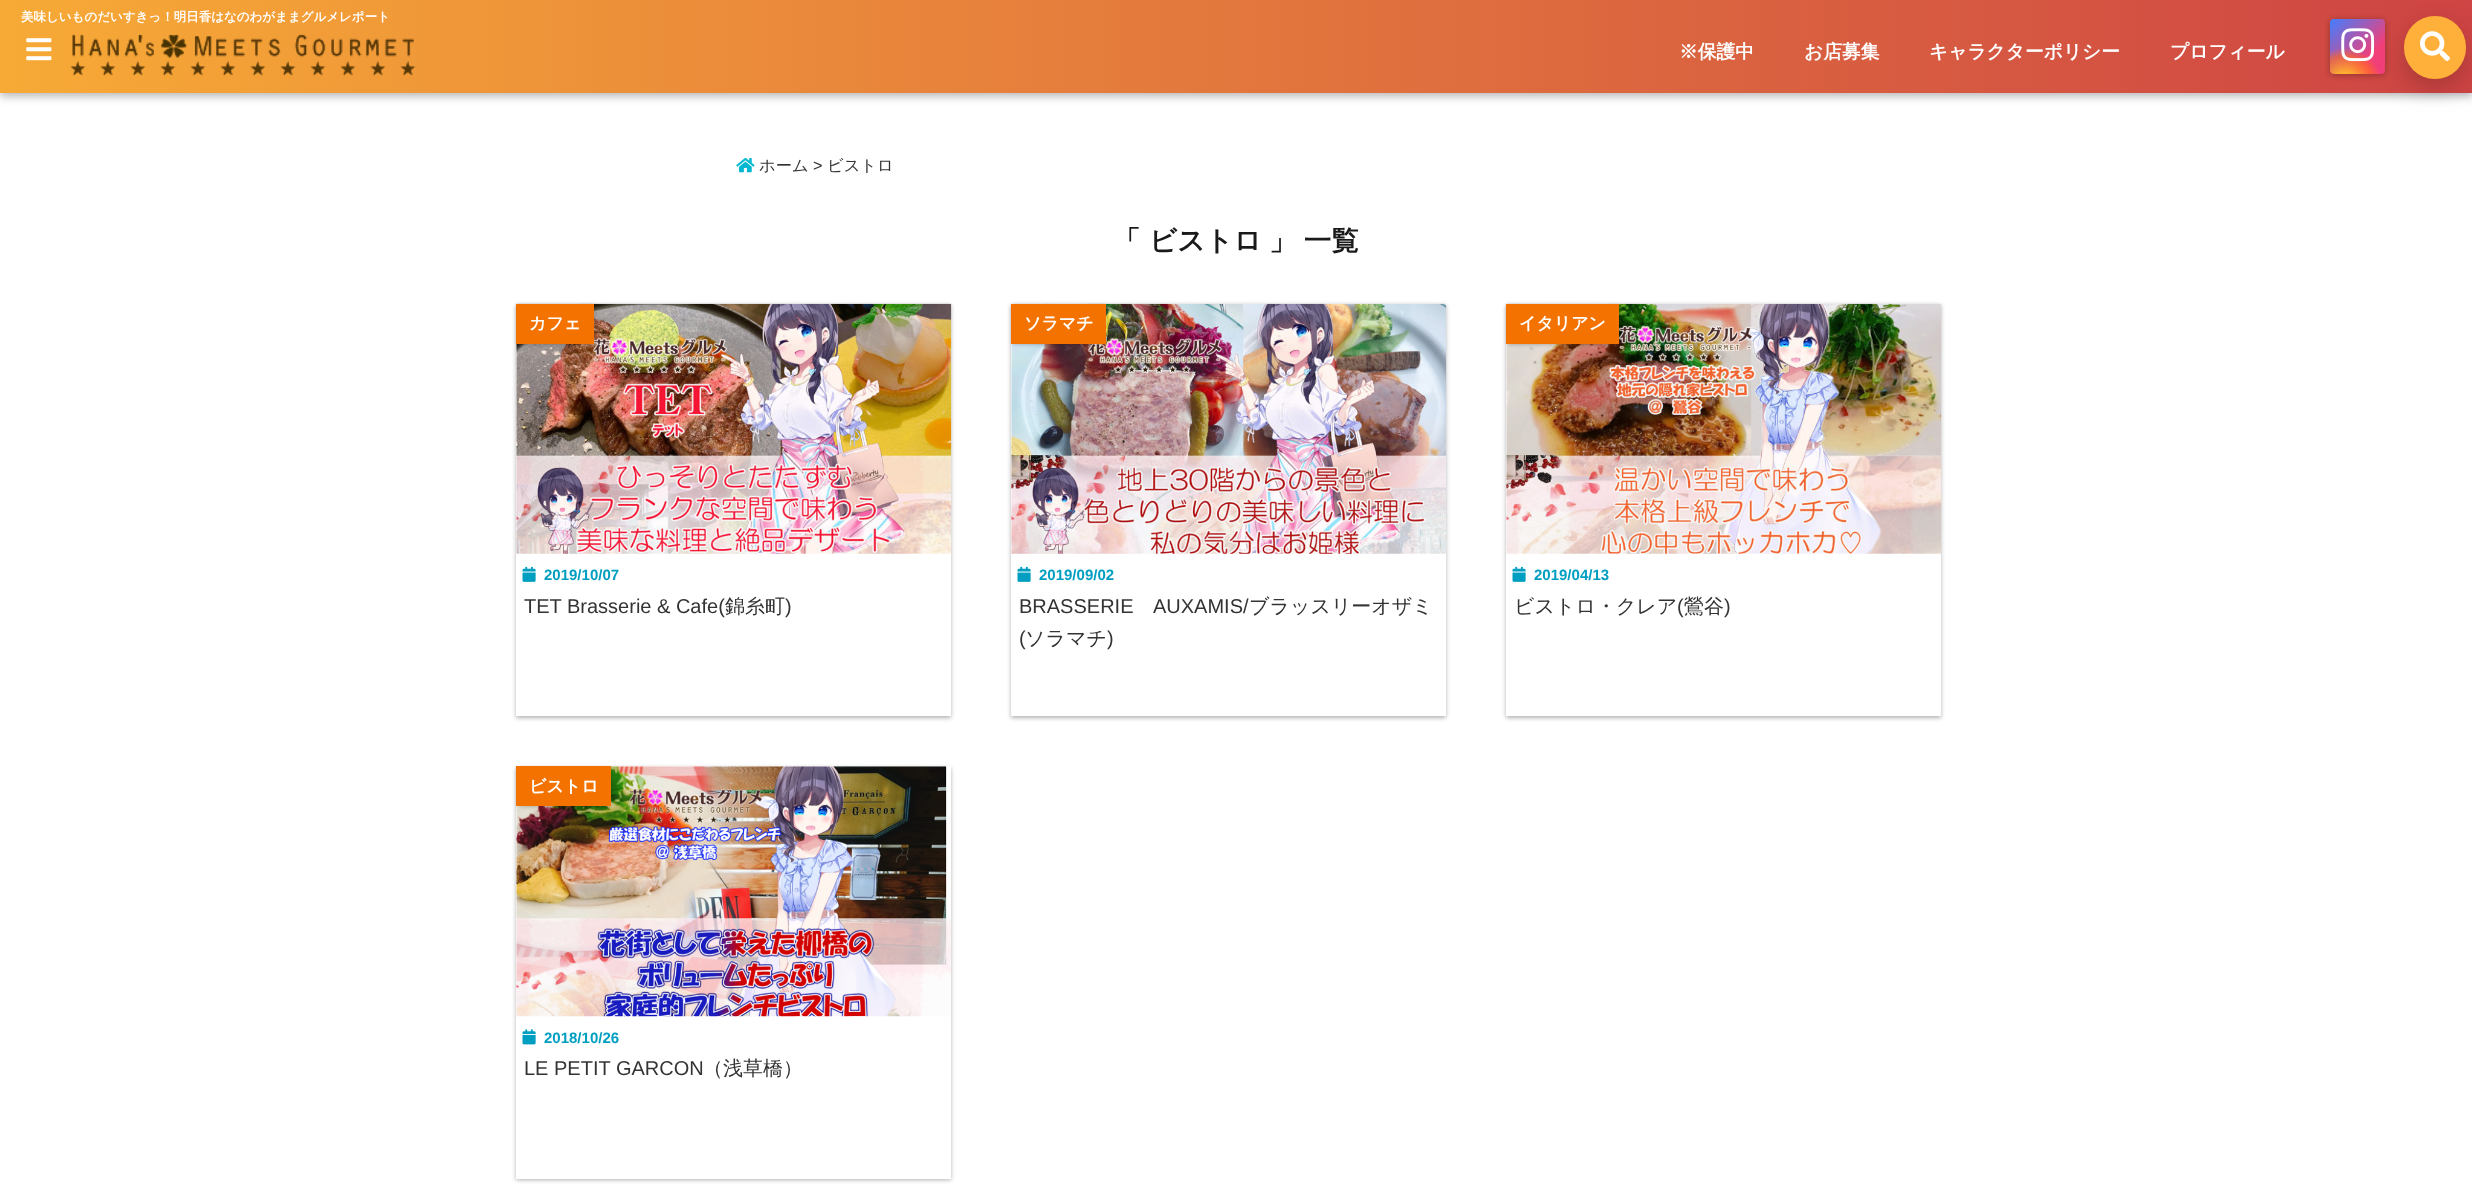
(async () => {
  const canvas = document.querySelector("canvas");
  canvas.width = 2472;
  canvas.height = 1193;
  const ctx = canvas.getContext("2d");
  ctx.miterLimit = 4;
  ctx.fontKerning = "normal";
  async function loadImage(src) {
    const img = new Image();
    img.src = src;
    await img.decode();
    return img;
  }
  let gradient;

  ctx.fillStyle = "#ffffff";
  ctx.fillRect(0, 0, 2472, 1193);
  ctx.fillStyle = "rgba(0, 0, 0, 0.3)";
  ctx.filter = "blur(5px)";
  ctx.beginPath();
  ctx.rect(0, 4, 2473, 92);
  ctx.fill();
  ctx.filter = "none";
  gradient = ctx.createLinearGradient(0, 46, 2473, 46);
  gradient.addColorStop(0, "#f7aa36");
  gradient.addColorStop(1, "#ce4444");
  ctx.fillStyle = gradient;
  ctx.fillRect(0, 0, 2472, 93);
  ctx.drawImage(await loadImage("img/1.png"), 26, 38, 26, 23);
  ctx.drawImage(await loadImage("img/2.png"), 70, 34, 346, 42);
  ctx.fillStyle = "rgba(0, 0, 0, 0.3)";
  ctx.filter = "blur(3px)";
  ctx.beginPath();
  ctx.roundRect(2330, 20, 55, 55, 4);
  ctx.fill();
  ctx.filter = "none";
  gradient = ctx.createLinearGradient(2330, 19, 2385, 74);
  gradient.addColorStop(0, "#427eff");
  gradient.addColorStop(0.7, "#f13f79");
  ctx.fillStyle = gradient;
  ctx.beginPath();
  ctx.roundRect(2330, 19, 55, 55, 4);
  ctx.fill();
  ctx.save();
  ctx.beginPath();
  ctx.roundRect(2330, 19, 55, 55, 4);
  ctx.clip();
  gradient = ctx.createRadialGradient(2345, 85, 0, 2345, 85, 53);
  gradient.addColorStop(0.1, "#ffdb2c");
  gradient.addColorStop(0.55, "rgba(255, 105, 34, 0.65)");
  gradient.addColorStop(0.7, "rgba(255, 105, 34, 0)");
  ctx.fillStyle = gradient;
  ctx.beginPath();
  ctx.roundRect(2330, 48, 53, 26, [0, 0, 0, 4]);
  ctx.fill();
  ctx.restore();
  ctx.drawImage(await loadImage("img/3.png"), 2341, 28, 34, 34);
  ctx.fillStyle = "rgba(0, 0, 0, 0.3)";
  ctx.filter = "blur(15.5px)";
  ctx.beginPath();
  ctx.roundRect(2410, 33, 50, 50, 25);
  ctx.fill();
  ctx.filter = "none";
  ctx.fillStyle = "#ffb03a";
  ctx.beginPath();
  ctx.roundRect(2404, 16, 62, 63, 31);
  ctx.fill();
  ctx.drawImage(await loadImage("img/4.png"), 2420, 31, 30, 30);
  ctx.drawImage(await loadImage("img/5.png"), 736, 158, 19, 15);
  ctx.fillStyle = "rgba(0, 0, 0, 0.3)";
  ctx.filter = "blur(2px)";
  ctx.beginPath();
  ctx.rect(516, 305, 435, 413);
  ctx.fill();
  ctx.filter = "none";
  ctx.fillStyle = "#ffffff";
  ctx.fillRect(516, 344, 435, 372);
  ctx.drawImage(await loadImage("img/6.png"), 516, 303, 436, 251);
  ctx.fillStyle = "rgba(0, 0, 0, 0.3)";
  ctx.filter = "blur(2px)";
  ctx.beginPath();
  ctx.rect(518, 306, 75, 38);
  ctx.fill();
  ctx.filter = "none";
  ctx.fillStyle = "#f47200";
  ctx.fillRect(516, 304, 78, 40);
  ctx.drawImage(await loadImage("img/7.png"), 522, 566, 14, 16);
  ctx.fillStyle = "rgba(0, 0, 0, 0.3)";
  ctx.filter = "blur(2px)";
  ctx.beginPath();
  ctx.rect(1011, 305, 435, 413);
  ctx.fill();
  ctx.filter = "none";
  ctx.fillStyle = "#ffffff";
  ctx.fillRect(1011, 344, 435, 372);
  ctx.drawImage(await loadImage("img/8.png"), 1011, 303, 436, 251);
  ctx.fillStyle = "rgba(0, 0, 0, 0.3)";
  ctx.filter = "blur(2px)";
  ctx.beginPath();
  ctx.rect(1013, 306, 92, 38);
  ctx.fill();
  ctx.filter = "none";
  ctx.fillStyle = "#f47200";
  ctx.fillRect(1011, 304, 95, 40);
  ctx.drawImage(await loadImage("img/7.png"), 1017, 566, 14, 16);
  ctx.fillStyle = "rgba(0, 0, 0, 0.3)";
  ctx.filter = "blur(2px)";
  ctx.beginPath();
  ctx.rect(1506, 305, 435, 413);
  ctx.fill();
  ctx.filter = "none";
  ctx.fillStyle = "#ffffff";
  ctx.fillRect(1506, 344, 435, 372);
  ctx.drawImage(await loadImage("img/9.png"), 1506, 303, 436, 251);
  ctx.fillStyle = "rgba(0, 0, 0, 0.3)";
  ctx.filter = "blur(2px)";
  ctx.beginPath();
  ctx.rect(1508, 306, 110, 38);
  ctx.fill();
  ctx.filter = "none";
  ctx.fillStyle = "#f47200";
  ctx.fillRect(1506, 304, 113, 40);
  ctx.drawImage(await loadImage("img/7.png"), 1512, 566, 14, 16);
  ctx.fillStyle = "rgba(0, 0, 0, 0.3)";
  ctx.filter = "blur(2px)";
  ctx.beginPath();
  ctx.rect(516, 768, 435, 412);
  ctx.fill();
  ctx.filter = "none";
  ctx.fillStyle = "#ffffff";
  ctx.fillRect(516, 766, 435, 413);
  ctx.drawImage(await loadImage("img/10.png"), 516, 766, 435, 251);
  ctx.fillStyle = "rgba(0, 0, 0, 0.3)";
  ctx.filter = "blur(2px)";
  ctx.beginPath();
  ctx.rect(518, 769, 92, 37);
  ctx.fill();
  ctx.filter = "none";
  ctx.fillStyle = "#f47200";
  ctx.fillRect(516, 766, 95, 40);
  ctx.drawImage(await loadImage("img/11.png"), 522, 1029, 14, 16);
  ctx.font = "bold 12.5px WenQuanYi Zen Hei";
  ctx.fillStyle = "#ffffff";
  ctx.fillText("美味しいものだいすきっ！明日香はなのわがままグルメレポート", 21, 21);
  ctx.font = "bold 18.75px WenQuanYi Zen Hei";
  for (const [text, x, y] of [
    ["※保護中", 1679, 58],
    ["お店募集", 1804, 58],
    ["キャラクターポリシー", 1929, 58],
    ["プロフィール", 2170, 58],
  ]) {
    ctx.fillText(text, x, y);
  }
  ctx.font = "500 16.25px WenQuanYi Zen Hei";
  ctx.fillStyle = "#333333";
  ctx.fillText("ホーム", 759, 171);
  ctx.font = "16.25px Liberation Sans";
  ctx.fillText(">", 813, 171);
  ctx.font = "500 16.25px WenQuanYi Zen Hei";
  ctx.fillText("ビストロ", 827, 171);
  ctx.font = "bold 27.5px WenQuanYi Zen Hei";
  ctx.fillStyle = "#1a1a1a";
  ctx.fillText("「", 1113, 250);
  ctx.fillText("ビストロ", 1149, 250);
  ctx.wordSpacing = "-1px";
  ctx.fillText("」 一覧", 1269, 250);
  ctx.wordSpacing = "0px";
  ctx.font = "bold 17px WenQuanYi Zen Hei";
  ctx.fillStyle = "#ffffff";
  ctx.fillText("カフェ", 529, 329);
  ctx.font = "bold 15px Liberation Sans";
  ctx.fillStyle = "#009fc1";
  ctx.fillText("2019/10/07", 544, 580);
  ctx.font = "20px Liberation Sans";
  ctx.fillStyle = "#333333";
  ctx.fillText("TET Brasserie & Cafe(", 524, 613);
  ctx.font = "500 20px WenQuanYi Zen Hei";
  ctx.fillText("錦糸町", 725, 613);
  ctx.font = "20px Liberation Sans";
  ctx.fillText(")", 785, 613);
  ctx.font = "bold 17px WenQuanYi Zen Hei";
  ctx.fillStyle = "#ffffff";
  ctx.fillText("ソラマチ", 1024, 329);
  ctx.font = "bold 15px Liberation Sans";
  ctx.fillStyle = "#009fc1";
  ctx.fillText("2019/09/02", 1039, 580);
  ctx.font = "20px Liberation Sans";
  ctx.fillStyle = "#333333";
  ctx.fillText("BRASSERIE", 1019, 613);
  ctx.fillText("AUXAMIS/", 1153, 613);
  ctx.font = "500 20px WenQuanYi Zen Hei";
  ctx.fillText("ブラッスリーオザミ", 1249, 613);
  ctx.font = "20px Liberation Sans";
  ctx.fillText("(", 1019, 645);
  ctx.font = "500 20px WenQuanYi Zen Hei";
  ctx.fillText("ソラマチ", 1025, 645);
  ctx.font = "20px Liberation Sans";
  ctx.fillText(")", 1107, 645);
  ctx.font = "bold 17px WenQuanYi Zen Hei";
  ctx.fillStyle = "#ffffff";
  ctx.fillText("イタリアン", 1519, 329);
  ctx.font = "bold 15px Liberation Sans";
  ctx.fillStyle = "#009fc1";
  ctx.fillText("2019/04/13", 1534, 580);
  ctx.font = "500 20px WenQuanYi Zen Hei";
  ctx.fillStyle = "#333333";
  ctx.fillText("ビストロ・クレア", 1514, 613);
  ctx.font = "20px Liberation Sans";
  ctx.fillText("(", 1677, 613);
  ctx.font = "500 20px WenQuanYi Zen Hei";
  ctx.fillText("鶯谷", 1684, 613);
  ctx.font = "20px Liberation Sans";
  ctx.fillText(")", 1724, 613);
  ctx.font = "bold 17px WenQuanYi Zen Hei";
  ctx.fillStyle = "#ffffff";
  ctx.fillText("ビストロ", 529, 792);
  ctx.font = "bold 15px Liberation Sans";
  ctx.fillStyle = "#009fc1";
  ctx.fillText("2018/10/26", 544, 1043);
  ctx.font = "20px Liberation Sans";
  ctx.fillStyle = "#333333";
  ctx.fillText("LE PETIT GARCON", 524, 1075);
  ctx.font = "500 20px WenQuanYi Zen Hei";
  ctx.fillText("（浅草橋）", 703, 1075);
})();
